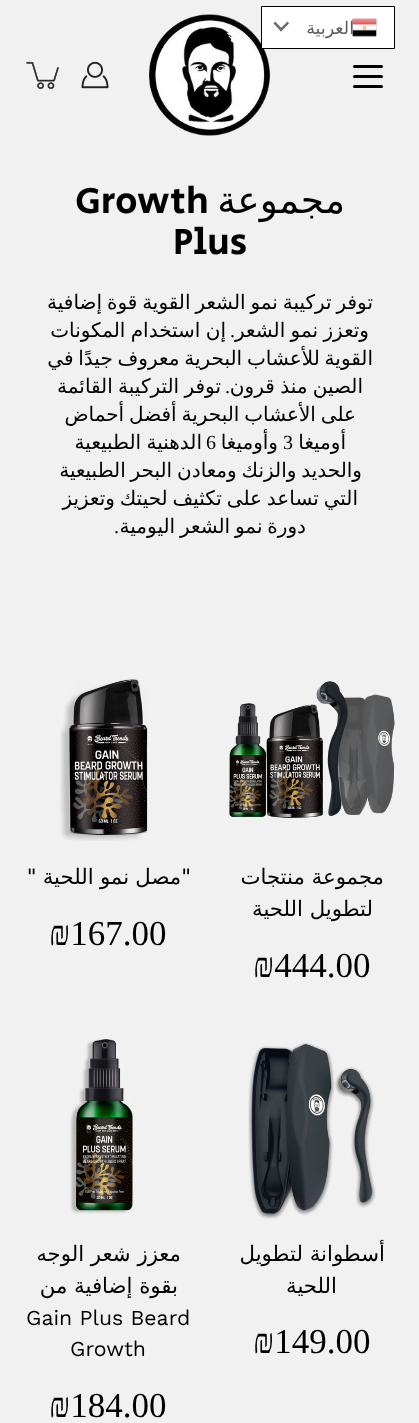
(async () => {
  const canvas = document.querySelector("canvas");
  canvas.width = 419;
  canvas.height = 1423;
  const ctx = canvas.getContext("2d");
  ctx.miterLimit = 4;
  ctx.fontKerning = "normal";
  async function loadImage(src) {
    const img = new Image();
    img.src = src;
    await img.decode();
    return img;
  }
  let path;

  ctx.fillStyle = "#f1f1f1";
  ctx.fillRect(0, 0, 419, 1423);
  ctx.drawImage(await loadImage("img/2.png"), 149, 14, 121, 122);
  ctx.fillStyle = "#ffffff";
  ctx.beginPath();
  ctx.rect(261.5, 6.5, 133, 42);
  ctx.fill();
  ctx.strokeStyle = "#000000";
  ctx.stroke();
  ctx.drawImage(await loadImage("img/1.png"), 352, 18, 25, 19);
  ctx.fillStyle = "#6c6c6c";
  path = new Path2D("M287.5 21.5L289 23.5L281 31.5L279.5 29.5Z");
  ctx.fill(path);
  path = new Path2D("M275 21.5L283 29.5L281 31.5L273.5 23.5Z");
  ctx.fill(path);
  ctx.fillStyle = "#000000";
  ctx.beginPath();
  ctx.roundRect(353, 75, 30, 3, 1.5);
  ctx.fill();
  ctx.beginPath();
  ctx.roundRect(353, 65, 30, 3, 1.5);
  ctx.fill();
  ctx.beginPath();
  ctx.roundRect(353, 85, 30, 3, 1.5);
  ctx.fill();
  ctx.drawImage(await loadImage("img/3.png"), 81, 61, 28, 28);
  ctx.drawImage(await loadImage("img/4.png"), 26, 61, 33, 28);
  ctx.drawImage(await loadImage("img/5.png"), 229, 681, 166, 137);
  ctx.drawImage(await loadImage("img/6.png"), 60, 679, 88, 162);
  ctx.drawImage(await loadImage("img/7.png"), 248, 1042, 128, 177);
  ctx.drawImage(await loadImage("img/8.png"), 70, 1038, 64, 176);
  ctx.letterSpacing = "1.75px";
  ctx.direction = "rtl";
  ctx.font = "17.5px DejaVu Sans";
  ctx.fillStyle = "#5c5c5c";
  ctx.fillText("العربية", 354, 34);
  ctx.letterSpacing = "0px";
  ctx.font = "37.5px DejaVu Sans";
  ctx.fillStyle = "#000000";
  ctx.fillText("مجموعة", 345, 213);
  ctx.direction = "ltr";
  ctx.font = "37.5px Secular One";
  ctx.fillText("Growth", 75, 213);
  ctx.fillText("Plus", 173, 254);
  ctx.wordSpacing = "-1.5px";
  ctx.direction = "rtl";
  ctx.font = "20px DejaVu Sans";
  ctx.fillText("توفر تركيبة نمو الشعر القوية قوة إضافية", 373, 309);
  ctx.wordSpacing = "-1px";
  ctx.fillText("وتعزز نمو الشعر", 369, 337);
  ctx.wordSpacing = "0px";
  ctx.font = "20px Liberation Serif";
  ctx.fillText(".", 235, 337);
  ctx.wordSpacing = "-1px";
  ctx.font = "20px DejaVu Sans";
  ctx.fillText("إن استخدام المكونات", 226, 337);
  ctx.wordSpacing = "-1.5px";
  ctx.fillText("القوية للأعشاب البحرية معروف جيدًا في", 373, 365);
  ctx.wordSpacing = "-1px";
  ctx.fillText("الصين منذ قرون", 363, 393);
  ctx.wordSpacing = "0px";
  ctx.font = "20px Liberation Serif";
  ctx.fillText(".", 230, 393);
  ctx.wordSpacing = "-1px";
  ctx.font = "20px DejaVu Sans";
  ctx.fillText("توفر التركيبة القائمة", 221, 393);
  ctx.wordSpacing = "-1.5px";
  ctx.fillText("على الأعشاب البحرية أفضل أحماض", 356, 421);
  ctx.wordSpacing = "0px";
  ctx.fillText("أوميغا", 346, 449);
  ctx.direction = "ltr";
  ctx.font = "20px Liberation Serif";
  ctx.fillText("3", 283, 449);
  ctx.direction = "rtl";
  ctx.font = "20px DejaVu Sans";
  ctx.fillText("وأوميغا", 278, 449);
  ctx.direction = "ltr";
  ctx.font = "20px Liberation Serif";
  ctx.fillText("6", 206, 449);
  ctx.wordSpacing = "-1px";
  ctx.direction = "rtl";
  ctx.font = "20px DejaVu Sans";
  ctx.fillText("الدهنية الطبيعية", 202, 449);
  ctx.wordSpacing = "-1.5px";
  for (const [text, x, y] of [
    ["والحديد والزنك ومعادن البحر الطبيعية", 362, 477],
    ["التي تساعد على تكثيف لحيتك وتعزيز", 358, 505],
    ["دورة نمو الشعر اليومية", 306, 533],
  ]) {
    ctx.fillText(text, x, y);
  }
  ctx.wordSpacing = "0px";
  ctx.font = "20px Liberation Serif";
  ctx.fillText(".", 119, 533);
  ctx.font = "21.25px DejaVu Sans";
  ctx.fillText("مجموعة منتجات", 384, 884);
  ctx.fillText("لتطويل اللحية", 373, 916);
  ctx.direction = "ltr";
  ctx.font = "35px Liberation Serif";
  ctx.fillText("₪444.00", 253, 977);
  ctx.wordSpacing = "-0.5px";
  ctx.direction = "rtl";
  ctx.font = "21.25px DejaVu Sans";
  ctx.fillText("\"مصل نمو اللحية \"", 191, 884);
  ctx.wordSpacing = "0px";
  ctx.direction = "ltr";
  ctx.font = "35px Liberation Serif";
  ctx.fillText("₪167.00", 49, 945);
  ctx.direction = "rtl";
  ctx.font = "21.25px DejaVu Sans";
  ctx.fillText("أسطوانة لتطويل", 385, 1261);
  ctx.fillText("اللحية", 337, 1293);
  ctx.direction = "ltr";
  ctx.font = "35px Liberation Serif";
  ctx.fillText("₪149.00", 253, 1353);
  ctx.direction = "rtl";
  ctx.font = "21.25px DejaVu Sans";
  ctx.fillText("معزز شعر الوجه", 181, 1261);
  ctx.fillText("بقوة إضافية من", 178, 1293);
  ctx.direction = "ltr";
  ctx.font = "21.25px Work Sans";
  ctx.fillText("Gain Plus Beard", 26, 1325);
  ctx.fillText("Growth", 70, 1356);
  ctx.font = "35px Liberation Serif";
  ctx.fillText("₪184.00", 49, 1417);
})();
